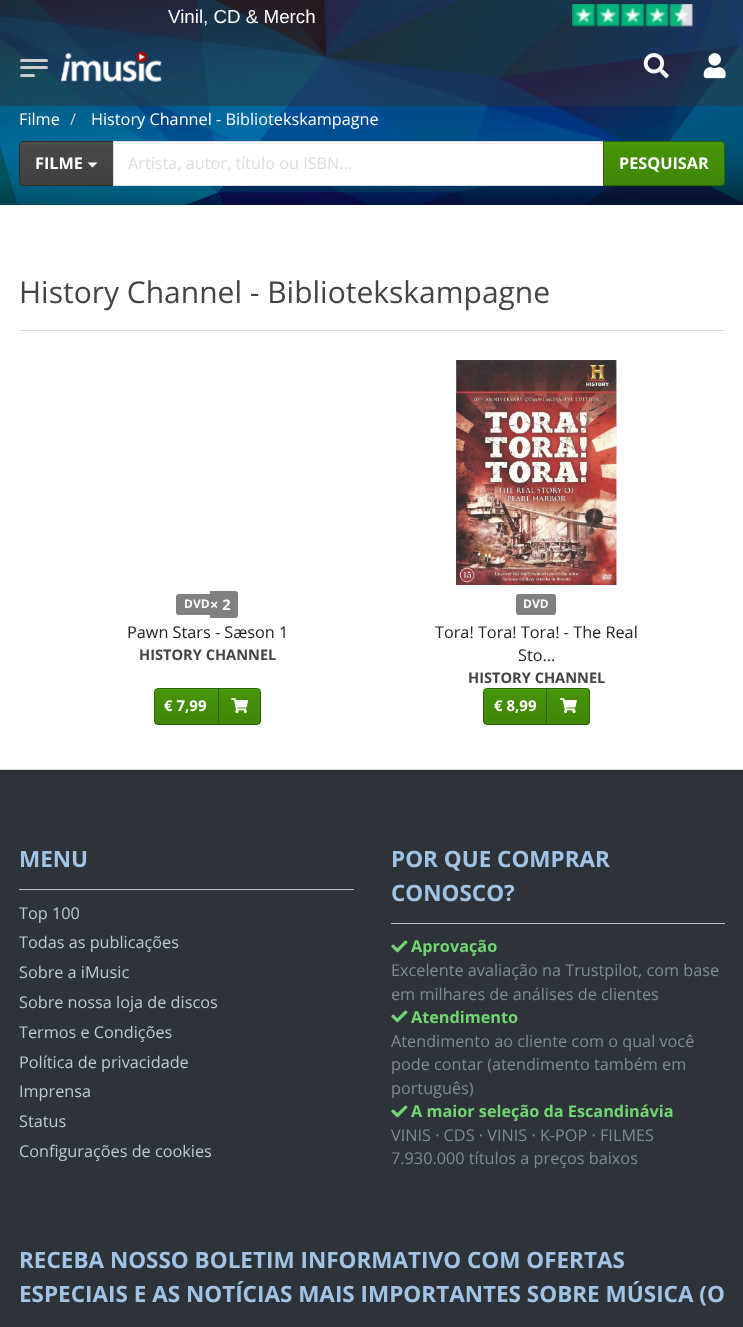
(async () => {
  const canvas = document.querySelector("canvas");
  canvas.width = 743;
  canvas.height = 1327;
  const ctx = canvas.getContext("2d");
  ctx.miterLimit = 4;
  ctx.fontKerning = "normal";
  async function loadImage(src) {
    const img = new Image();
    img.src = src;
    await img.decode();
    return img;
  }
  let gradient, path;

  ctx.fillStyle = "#ffffff";
  ctx.fillRect(0, 0, 743, 1327);
  ctx.drawImage(await loadImage("img/1.png"), 0, 0, 743, 205);
  ctx.fillStyle = "rgba(45, 51, 57, 0.5)";
  ctx.fillRect(0, 0, 743, 106);
  ctx.drawImage(await loadImage("img/2.png"), 572, 4, 121, 23);
  ctx.fillStyle = "#cccccc";
  ctx.beginPath();
  ctx.roundRect(20, 59, 28, 3, 1.5);
  ctx.fill();
  ctx.beginPath();
  ctx.roundRect(20, 66, 28, 3, 1.5);
  ctx.fill();
  ctx.beginPath();
  ctx.roundRect(20, 74, 15, 3, 1.5);
  ctx.fill();
  ctx.drawImage(await loadImage("img/3.png"), 61, 51, 101, 31);
  ctx.drawImage(await loadImage("img/4.png"), 643, 53, 26, 26);
  ctx.drawImage(await loadImage("img/5.png"), 703, 53, 23, 26);
  ctx.fillStyle = "#474949";
  ctx.beginPath();
  ctx.roundRect(19, 141, 95, 45, [5, 0, 0, 5]);
  ctx.fill();
  gradient = ctx.createLinearGradient(66, 143, 66, 185);
  gradient.addColorStop(0, "#4f5151");
  gradient.addColorStop(0.06, "#474949");
  gradient.addColorStop(1, "#3f4141");
  ctx.fillStyle = gradient;
  ctx.fillRect(20, 143, 93, 42);
  ctx.beginPath();
  ctx.roundRect(19.5, 141.5, 94, 44, [4.5, 0, 0, 4.5]);
  ctx.strokeStyle = "#2e2f2f";
  ctx.stroke();
  ctx.fillStyle = "#ffffff";
  path = new Path2D("M87.5 162.5H97.5L92.5 167.5Z");
  ctx.fill(path);
  ctx.fillRect(114, 142, 489, 43);
  ctx.fillStyle = "#ececec";
  ctx.fillRect(114, 143, 489, 1);
  ctx.strokeStyle = "#dddddd";
  ctx.strokeRect(113.5, 141.5, 490, 44);
  ctx.fillStyle = "#469408";
  ctx.beginPath();
  ctx.roundRect(603, 141, 122, 45, [0, 5, 5, 0]);
  ctx.fill();
  gradient = ctx.createLinearGradient(664, 143, 664, 185);
  gradient.addColorStop(0, "#4da309");
  gradient.addColorStop(0.06, "#469408");
  gradient.addColorStop(1, "#3f8507");
  ctx.fillStyle = gradient;
  ctx.fillRect(604, 143, 120, 42);
  ctx.beginPath();
  ctx.roundRect(603.5, 141.5, 121, 44, [0, 4.5, 4.5, 0]);
  ctx.strokeStyle = "#2f6405";
  ctx.stroke();
  ctx.fillStyle = "#dddddd";
  ctx.fillRect(19, 330, 706, 1);
  ctx.fillStyle = "#808080";
  ctx.beginPath();
  ctx.roundRect(176, 594, 34, 21, [3, 0, 0, 3]);
  ctx.fill();
  ctx.beginPath();
  ctx.roundRect(210, 591, 28, 27, [0, 3, 3, 0]);
  ctx.fill();
  gradient = ctx.createLinearGradient(186, 689, 186, 724);
  gradient.addColorStop(0, "#4da309");
  gradient.addColorStop(0.06, "#469408");
  gradient.addColorStop(1, "#3f8507");
  ctx.fillStyle = gradient;
  ctx.fillRect(155, 689, 63, 35);
  ctx.beginPath();
  ctx.roundRect(154.5, 688.5, 64, 36, [3.5, 0, 0, 3.5]);
  ctx.stroke();
  gradient = ctx.createLinearGradient(239, 689, 239, 724);
  gradient.addColorStop(0, "#4da309");
  gradient.addColorStop(0.06, "#469408");
  gradient.addColorStop(1, "#3f8507");
  ctx.fillStyle = gradient;
  ctx.fillRect(219, 689, 41, 35);
  ctx.beginPath();
  ctx.roundRect(218.5, 688.5, 42, 36, [0, 3.5, 3.5, 0]);
  ctx.stroke();
  ctx.drawImage(await loadImage("img/6.png"), 231, 698, 18, 16);
  ctx.drawImage(await loadImage("img/7.png"), 456, 360, 161, 225);
  ctx.drawImage(await loadImage("img/8.png"), 456, 360, 161, 225);
  ctx.fillStyle = "#808080";
  ctx.beginPath();
  ctx.roundRect(516, 594, 40, 21, 3);
  ctx.fill();
  gradient = ctx.createLinearGradient(515, 689, 515, 724);
  gradient.addColorStop(0, "#4da309");
  gradient.addColorStop(0.06, "#469408");
  gradient.addColorStop(1, "#3f8507");
  ctx.fillStyle = gradient;
  ctx.fillRect(484, 689, 62, 35);
  ctx.beginPath();
  ctx.roundRect(483.5, 688.5, 64, 36, [3.5, 0, 0, 3.5]);
  ctx.stroke();
  ctx.fillStyle = "#469408";
  ctx.beginPath();
  ctx.roundRect(546, 688, 44, 37, [0, 4, 4, 0]);
  ctx.fill();
  gradient = ctx.createLinearGradient(568, 689, 568, 724);
  gradient.addColorStop(0, "#4da309");
  gradient.addColorStop(0.06, "#469408");
  gradient.addColorStop(1, "#3f8507");
  ctx.fillStyle = gradient;
  ctx.fillRect(548, 689, 41, 35);
  ctx.beginPath();
  ctx.roundRect(546.5, 688.5, 43, 36, [0, 3.5, 3.5, 0]);
  ctx.stroke();
  ctx.drawImage(await loadImage("img/9.png"), 560, 698, 17, 16);
  for (const [x, y, w, h, color] of [
    [0, 770, 743, 557, "#2d3339"],
    [0, 769, 743, 1, "#dddddd"],
    [19, 889, 335, 1, "#bac1c8"],
    [391, 923, 334, 1, "#bac1c8"],
  ]) {
    ctx.fillStyle = color;
    ctx.fillRect(x, y, w, h);
  }
  ctx.drawImage(await loadImage("img/10.png"), 391, 940, 17, 13);
  ctx.drawImage(await loadImage("img/10.png"), 391, 1010, 17, 13);
  ctx.drawImage(await loadImage("img/10.png"), 391, 1105, 17, 13);
  ctx.font = "18.75px Liberation Sans";
  ctx.fillStyle = "#ffffff";
  ctx.fillText("Vinil, CD & Merch", 168, 23);
  ctx.font = "16.25px Open Sans";
  ctx.fillText("Filme", 19, 125);
  ctx.fillStyle = "#cccccc";
  ctx.fillText("/", 70, 125);
  ctx.fillStyle = "#ffffff";
  ctx.fillText("History Channel - Bibliotekskampagne", 91, 125);
  ctx.font = "bold 16.25px Open Sans";
  ctx.fillText("FILME", 35, 169);
  ctx.font = "16.25px Open Sans";
  ctx.fillStyle = "#dddddd";
  ctx.fillText("Artista, autor, título ou ISBN...", 128, 169);
  ctx.font = "bold 16.25px Open Sans";
  ctx.fillStyle = "#ffffff";
  ctx.fillText("PESQUISAR", 619, 169);
  ctx.font = "30px Open Sans";
  ctx.fillStyle = "#444444";
  ctx.fillText("History Channel - Bibliotekskampagne", 19, 303);
  ctx.font = "bold 12px Open Sans";
  ctx.fillStyle = "#ffffff";
  ctx.fillText("DVD", 184, 608);
  ctx.font = "bold 14.6px Open Sans";
  ctx.fillText("× 2", 210, 610);
  ctx.font = "16.25px Open Sans";
  ctx.fillStyle = "#222222";
  ctx.fillText("Pawn Stars - Sæson 1", 127, 638);
  ctx.font = "bold 14.6px Open Sans";
  ctx.fillStyle = "#444444";
  ctx.fillText("HISTORY CHANNEL", 139, 660);
  ctx.font = "bold 15px Open Sans";
  ctx.fillStyle = "#ffffff";
  ctx.fillText("€ 7,99", 164, 711);
  ctx.font = "bold 12px Open Sans";
  ctx.fillText("DVD", 523, 608);
  ctx.font = "16.25px Open Sans";
  ctx.fillStyle = "#222222";
  ctx.fillText("Tora! Tora! Tora! - The Real", 435, 638);
  ctx.fillText("Sto...", 518, 661);
  ctx.font = "bold 14.6px Open Sans";
  ctx.fillStyle = "#444444";
  ctx.fillText("HISTORY CHANNEL", 468, 683);
  ctx.font = "bold 15px Open Sans";
  ctx.fillStyle = "#ffffff";
  ctx.fillText("€ 8,99", 494, 711);
  ctx.font = "bold 22.5px Open Sans";
  ctx.fillStyle = "#a1c4e6";
  ctx.fillText("MENU", 19, 867);
  ctx.font = "16.25px Open Sans";
  ctx.fillStyle = "#becad0";
  for (const [text, x, y] of [
    ["Top 100", 19, 919],
    ["Todas as publicações", 19, 948],
    ["Sobre a iMusic", 19, 978],
    ["Sobre nossa loja de discos", 19, 1008],
    ["Termos e Condições", 19, 1038],
    ["Política de privacidade", 19, 1068],
    ["Imprensa", 19, 1097],
    ["Status", 19, 1127],
    ["Configurações de cookies", 19, 1157],
  ]) {
    ctx.fillText(text, x, y);
  }
  ctx.font = "bold 22.5px Open Sans";
  ctx.fillStyle = "#a1c4e6";
  ctx.fillText("POR QUE COMPRAR", 391, 867);
  ctx.fillText("CONOSCO?", 391, 901);
  ctx.font = "bold 16.25px Open Sans";
  ctx.fillStyle = "#71d672";
  ctx.fillText("Aprovação", 411, 952);
  ctx.font = "16.25px Open Sans";
  ctx.fillStyle = "#7f8c8d";
  ctx.fillText("Excelente avaliação na Trustpilot, com base", 391, 976);
  ctx.fillText("em milhares de análises de clientes", 391, 1000);
  ctx.font = "bold 16.25px Open Sans";
  ctx.fillStyle = "#71d672";
  ctx.fillText("Atendimento", 411, 1023);
  ctx.font = "16.25px Open Sans";
  ctx.fillStyle = "#7f8c8d";
  for (const [text, x, y] of [
    ["Atendimento ao cliente com o qual você", 391, 1047],
    ["pode contar (atendimento também em", 391, 1070],
    ["português)", 391, 1094],
  ]) {
    ctx.fillText(text, x, y);
  }
  ctx.font = "bold 16.25px Open Sans";
  ctx.fillStyle = "#71d672";
  ctx.fillText("A maior seleção da Escandinávia", 411, 1117);
  ctx.font = "16.25px Open Sans";
  ctx.fillStyle = "#7f8c8d";
  ctx.fillText("VINIS · CDS · VINIS · K-POP · FILMES", 391, 1141);
  ctx.fillText("7.930.000 títulos a preços baixos", 391, 1164);
  ctx.font = "bold 22.5px Open Sans";
  ctx.fillStyle = "#a1c4e6";
  ctx.fillText("RECEBA NOSSO BOLETIM INFORMATIVO COM OFERTAS", 19, 1268);
  ctx.fillText("ESPECIAIS E AS NOTÍCIAS MAIS IMPORTANTES SOBRE MÚSICA (O", 19, 1302);
})();
